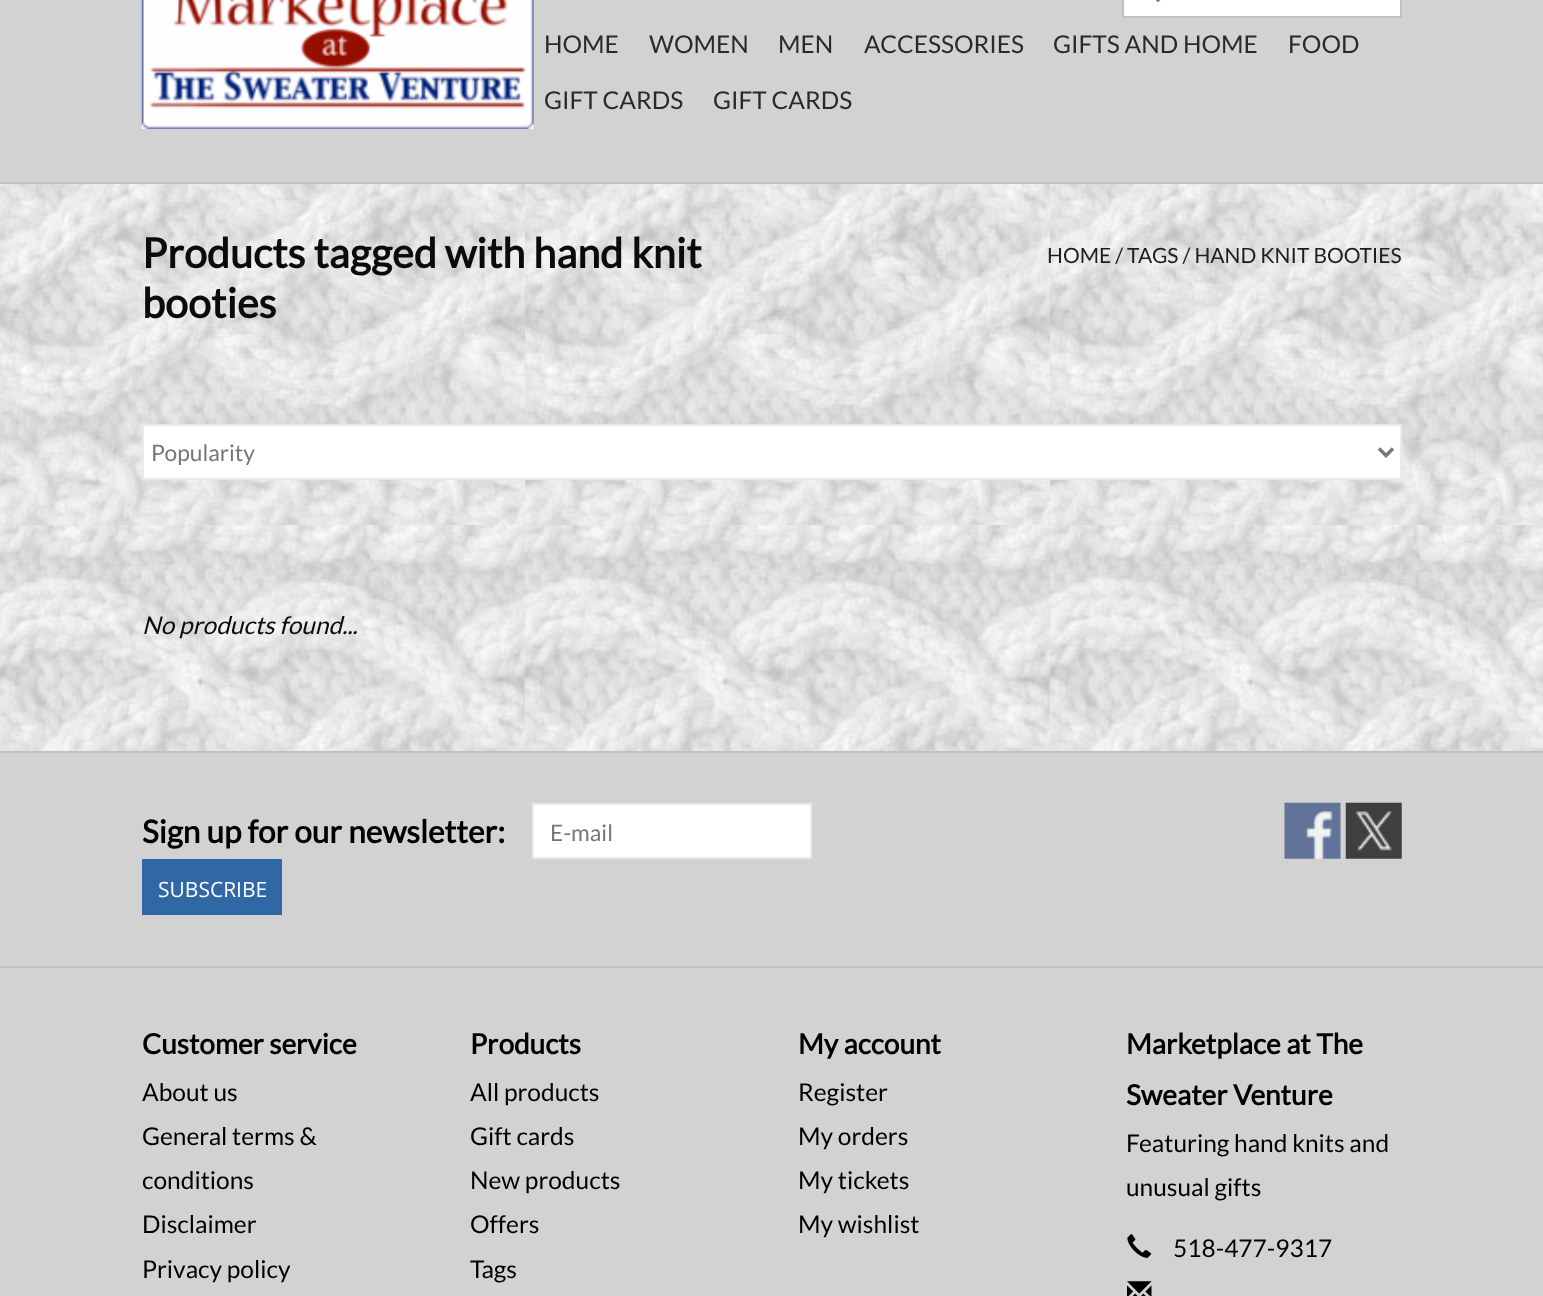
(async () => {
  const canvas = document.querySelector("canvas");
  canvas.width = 1543;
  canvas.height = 1296;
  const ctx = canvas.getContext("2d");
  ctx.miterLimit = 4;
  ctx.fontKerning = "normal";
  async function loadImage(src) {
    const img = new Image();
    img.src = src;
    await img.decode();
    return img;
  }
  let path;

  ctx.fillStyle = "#ffffff";
  ctx.fillRect(0, 0, 1543, 1296);
  ctx.drawImage(await loadImage("img/1.png"), 0, 184, 1543, 567);
  ctx.fillStyle = "#d2d2d2";
  ctx.fillRect(0, 0, 1543, 182);
  ctx.fillStyle = "#c1c1c1";
  ctx.fillRect(0, 182, 1543, 2);
  ctx.drawImage(await loadImage("img/2.png"), 141, 0, 393, 129);
  ctx.fillStyle = "#ffffff";
  ctx.beginPath();
  ctx.rect(1123, -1, 278, 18);
  ctx.fill();
  ctx.strokeStyle = "#c1c1c1";
  ctx.lineWidth = 2;
  ctx.stroke();
  ctx.drawImage(await loadImage("img/3.png"), 1155, 0, 6, 3);
  ctx.beginPath();
  ctx.rect(143, 425, 1258, 54);
  ctx.fill();
  ctx.strokeStyle = "#eaeaea";
  ctx.stroke();
  path = new Path2D("M1379 448.5L1386 455.5L1393 448.5");
  ctx.strokeStyle = "#777777";
  ctx.lineWidth = 3.5;
  ctx.stroke(path);
  ctx.fillStyle = "#d2d2d2";
  ctx.fillRect(0, 753, 1543, 543);
  ctx.fillStyle = "#c0c0c0";
  ctx.fillRect(0, 751, 1543, 2);
  ctx.fillStyle = "#ffffff";
  ctx.beginPath();
  ctx.rect(533, 804, 278, 54);
  ctx.fill();
  ctx.strokeStyle = "#e9e9e9";
  ctx.lineWidth = 2;
  ctx.stroke();
  ctx.fillStyle = "#2f68a4";
  ctx.fillRect(142, 859, 140, 56);
  ctx.drawImage(await loadImage("img/4.png"), 1284, 802, 57, 57);
  ctx.drawImage(await loadImage("img/5.png"), 1345, 802, 57, 57);
  ctx.fillStyle = "#c0c0c0";
  ctx.fillRect(0, 966, 1543, 2);
  ctx.drawImage(await loadImage("img/6.png"), 1127, 1234, 25, 24);
  ctx.drawImage(await loadImage("img/7.png"), 1127, 1281, 25, 15);
  ctx.font = "24.5px Lato";
  ctx.fillStyle = "#2d2929";
  for (const [text, x, y] of [
    ["HOME", 544, 53],
    ["WOMEN", 649, 53],
    ["MEN", 778, 53],
    ["ACCESSORIES", 864, 53],
    ["GIFTS AND HOME", 1053, 53],
    ["FOOD", 1288, 53],
    ["GIFT CARDS", 544, 109],
    ["GIFT CARDS", 713, 109],
  ]) {
    ctx.fillText(text, x, y);
  }
  ctx.font = "bold 41.3px Lato";
  ctx.fillStyle = "#0c0b0b";
  ctx.fillText("Products tagged with hand knit", 142, 268);
  ctx.fillText("booties", 142, 318);
  ctx.font = "21px Lato";
  ctx.fillStyle = "#1f1e1e";
  ctx.fillText("HOME / TAGS / HAND KNIT BOOTIES", 1047, 263);
  ctx.font = "22.75px Lato";
  ctx.fillStyle = "#777777";
  ctx.fillText("Popularity", 151, 461);
  ctx.font = "italic 24.5px Lato";
  ctx.fillStyle = "#0c0b0b";
  ctx.fillText("No products found...", 142, 634);
  ctx.font = "bold 31.5px Lato";
  ctx.fillStyle = "#000000";
  ctx.fillText("Sign up for our newsletter:", 142, 843);
  ctx.font = "22.75px Lato";
  ctx.fillStyle = "#777777";
  ctx.fillText("E-mail", 550, 841);
  ctx.font = "21px Open Sans";
  ctx.fillStyle = "#ffffff";
  ctx.fillText("SUBSCRIBE", 158, 897);
  ctx.font = "bold 28px Lato";
  ctx.fillStyle = "#000000";
  ctx.fillText("Customer service", 142, 1054);
  ctx.font = "24.5px Lato";
  for (const [text, x, y] of [
    ["About us", 142, 1101],
    ["General terms &", 142, 1145],
    ["conditions", 142, 1189],
    ["Disclaimer", 142, 1233],
    ["Privacy policy", 142, 1278],
  ]) {
    ctx.fillText(text, x, y);
  }
  ctx.font = "bold 28px Lato";
  ctx.fillText("Products", 470, 1054);
  ctx.font = "24.5px Lato";
  for (const [text, x, y] of [
    ["All products", 470, 1101],
    ["Gift cards", 470, 1145],
    ["New products", 470, 1189],
    ["Offers", 470, 1233],
    ["Tags", 470, 1278],
  ]) {
    ctx.fillText(text, x, y);
  }
  ctx.font = "bold 28px Lato";
  ctx.fillText("My account", 798, 1054);
  ctx.font = "24.5px Lato";
  for (const [text, x, y] of [
    ["Register", 798, 1101],
    ["My orders", 798, 1145],
    ["My tickets", 798, 1189],
    ["My wishlist", 798, 1233],
  ]) {
    ctx.fillText(text, x, y);
  }
  ctx.font = "bold 28px Lato";
  ctx.fillText("Marketplace at The", 1126, 1054);
  ctx.fillText("Sweater Venture", 1126, 1105);
  ctx.font = "24.5px Lato";
  for (const [text, x, y] of [
    ["Featuring hand knits and", 1126, 1152],
    ["unusual gifts", 1126, 1196],
    ["518-477-9317", 1173, 1257],
  ]) {
    ctx.fillText(text, x, y);
  }
})();
